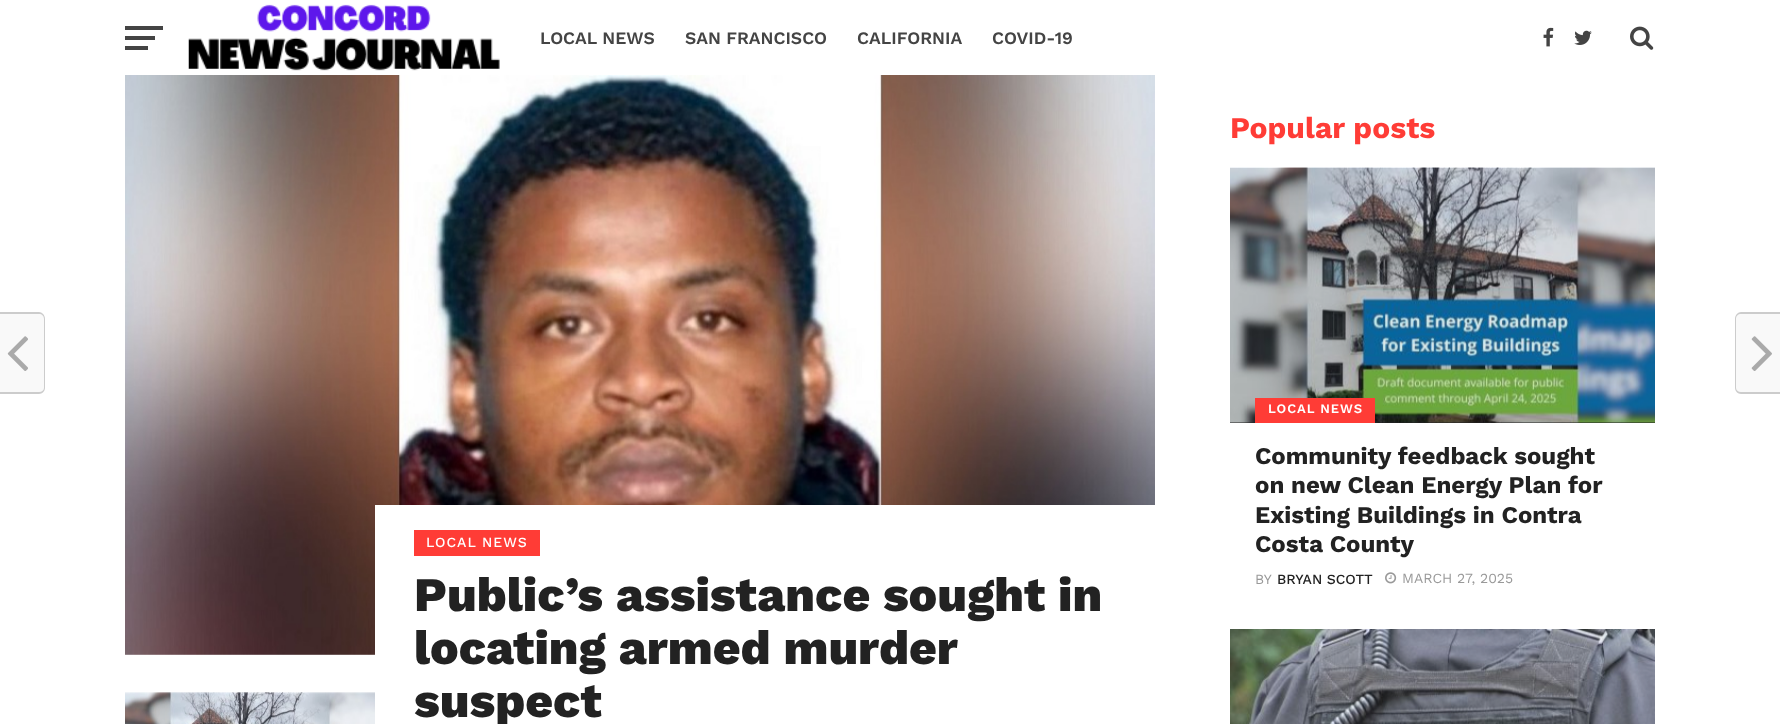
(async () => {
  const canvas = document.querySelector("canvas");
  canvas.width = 1780;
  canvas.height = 724;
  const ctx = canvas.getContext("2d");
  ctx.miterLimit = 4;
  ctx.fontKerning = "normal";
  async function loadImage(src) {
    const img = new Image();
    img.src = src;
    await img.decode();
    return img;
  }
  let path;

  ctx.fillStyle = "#ffffff";
  ctx.fillRect(0, 0, 1780, 724);
  for (const [x, y, w, h, color] of [
    [125, 26, 38, 4, "#444444"],
    [125, 36, 30, 4, "#444444"],
    [125, 46, 23, 4, "#444444"],
  ]) {
    ctx.fillStyle = color;
    ctx.fillRect(x, y, w, h);
  }
  ctx.drawImage(await loadImage("img/1.png"), 188, 4, 312, 67);
  ctx.drawImage(await loadImage("img/2.png"), 1543, 27, 11, 20);
  ctx.drawImage(await loadImage("img/3.png"), 1574, 30, 18, 15);
  ctx.drawImage(await loadImage("img/4.png"), 1630, 26, 24, 24);
  ctx.fillStyle = "#222222";
  ctx.fillRect(1230, 168, 425, 255);
  ctx.drawImage(await loadImage("img/5.png"), 1230, 167, 425, 256);
  ctx.fillStyle = "#ff3c36";
  ctx.fillRect(1255, 398, 120, 25);
  ctx.drawImage(await loadImage("img/6.png"), 1385, 572, 12, 12);
  ctx.drawImage(await loadImage("img/7.png"), 1230, 629, 425, 95);
  ctx.fillStyle = "#f9f9f9";
  ctx.beginPath();
  ctx.roundRect(0, 313, 45, 81, [0, 6, 6, 0]);
  ctx.fill();
  ctx.fillStyle = "#cccccc";
  path = new Path2D("M0 312H39C42 312 45 315 45 319V388C45 391 42 394 39 394H0ZM0 314H39C42 314 44 316 44 319V388C44 390 42 392 39 392H0Z");
  ctx.fill(path, "evenodd");
  ctx.drawImage(await loadImage("img/8.png"), 7, 336, 21, 35);
  ctx.fillStyle = "#f9f9f9";
  ctx.beginPath();
  ctx.roundRect(1735, 313, 45, 81, [6, 0, 0, 6]);
  ctx.fill();
  ctx.fillStyle = "#cccccc";
  path = new Path2D("M1741 312H1780V394H1741C1738 394 1735 391 1735 388V319C1735 315 1738 312 1741 312ZM1741 314H1780V392H1741C1738 392 1736 390 1736 388V319C1736 316 1738 314 1741 314Z");
  ctx.fill(path, "evenodd");
  ctx.drawImage(await loadImage("img/9.png"), 1751, 336, 21, 35);
  ctx.drawImage(await loadImage("img/10.png"), 125, 75, 1030, 580);
  ctx.drawImage(await loadImage("img/11.png"), 125, 692, 250, 32);
  ctx.fillStyle = "#ffffff";
  ctx.fillRect(375, 505, 780, 150);
  ctx.fillStyle = "#ff3c36";
  ctx.fillRect(414, 530, 126, 26);
  ctx.font = "600 17.5px Work Sans";
  ctx.fillStyle = "#444444";
  for (const [text, x, y] of [
    ["LOCAL NEWS", 540, 44],
    ["SAN FRANCISCO", 685, 44],
    ["CALIFORNIA", 857, 44],
    ["COVID-19", 992, 44],
  ]) {
    ctx.fillText(text, x, y);
  }
  ctx.font = "bold 30px Work Sans";
  ctx.fillStyle = "#ff3c36";
  ctx.fillText("Popular posts", 1230, 138);
  ctx.letterSpacing = "1px";
  ctx.font = "600 13px Work Sans";
  ctx.fillStyle = "#ffffff";
  ctx.fillText("LOCAL NEWS", 1268, 413);
  ctx.letterSpacing = "0px";
  ctx.font = "bold 24px Work Sans";
  ctx.fillStyle = "#222222";
  for (const [text, x, y] of [
    ["Community feedback sought", 1255, 464],
    ["on new Clean Energy Plan for", 1255, 493],
    ["Existing Buildings in Contra", 1255, 523],
    ["Costa County", 1255, 552],
  ]) {
    ctx.fillText(text, x, y);
  }
  ctx.font = "14px Work Sans";
  ctx.fillStyle = "#999999";
  ctx.fillText("BY", 1255, 584);
  ctx.font = "500 14px Work Sans";
  ctx.fillStyle = "#222222";
  ctx.fillText("BRYAN SCOTT", 1277, 584);
  ctx.font = "14px Work Sans";
  ctx.fillStyle = "#999999";
  ctx.fillText("MARCH 27, 2025", 1402, 583);
  ctx.letterSpacing = "1px";
  ctx.font = "500 14px Work Sans";
  ctx.fillStyle = "#ffffff";
  ctx.fillText("LOCAL NEWS", 426, 547);
  ctx.letterSpacing = "0px";
  ctx.font = "800 48px Work Sans";
  ctx.fillStyle = "#222222";
  for (const [text, x, y] of [
    ["Public’s assistance sought in", 414, 611],
    ["locating armed murder", 414, 664],
    ["suspect", 414, 717],
  ]) {
    ctx.fillText(text, x, y);
  }
})();
